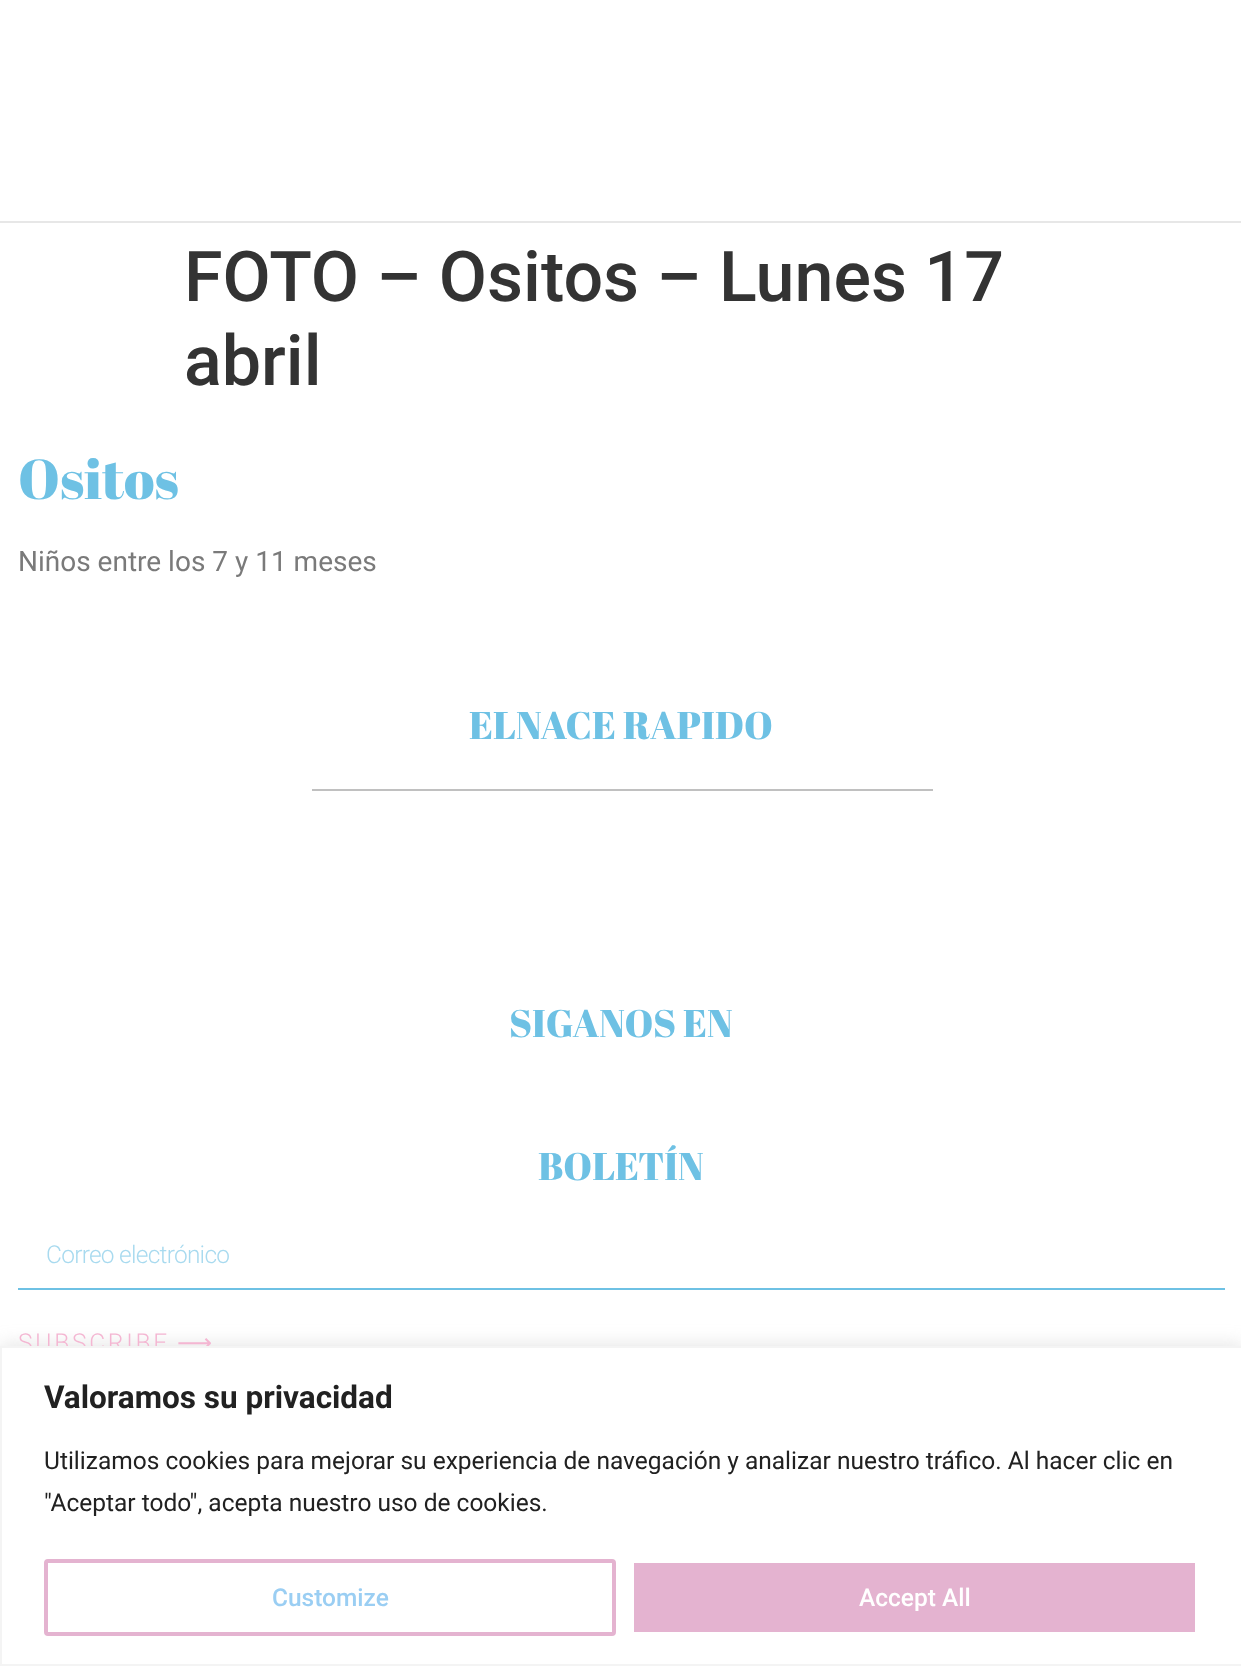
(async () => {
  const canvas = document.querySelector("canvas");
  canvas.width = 1241;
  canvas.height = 1666;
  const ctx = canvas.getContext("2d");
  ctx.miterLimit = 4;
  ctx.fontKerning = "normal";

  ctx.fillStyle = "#ffffff";
  ctx.fillRect(0, 0, 1241, 1666);
  for (const [x, y, w, h, color] of [
    [0, 221, 1241, 2, "#e7e7e7"],
    [312, 789, 621, 2, "#c0c0c0"],
    [18, 1288, 1207, 2, "#6ec1e4"],
  ]) {
    ctx.fillStyle = color;
    ctx.fillRect(x, y, w, h);
  }
  ctx.fillStyle = "rgba(172, 171, 171, 0.3)";
  ctx.filter = "blur(9px)";
  ctx.beginPath();
  ctx.rect(0, 1344, 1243, 320);
  ctx.fill();
  ctx.filter = "none";
  ctx.font = "500 70px Roboto";
  ctx.fillStyle = "#333333";
  ctx.fillText("FOTO – Ositos – Lunes 17", 184, 301);
  ctx.fillText("abril", 184, 385);
  ctx.font = "56px Abril Fatface";
  ctx.fillStyle = "#6ec1e4";
  ctx.fillText("Ositos", 18, 499);
  ctx.font = "28px Roboto";
  ctx.fillStyle = "#7a7a7a";
  ctx.fillText("Niños entre los 7 y 11 meses", 18, 571);
  ctx.font = "38.5px Abril Fatface";
  ctx.fillStyle = "#6ec1e4";
  for (const [text, x, y] of [
    ["ELNACE RAPIDO", 469, 739],
    ["SIGANOS EN", 509, 1037],
    ["BOLETÍN", 538, 1180],
  ]) {
    ctx.fillText(text, x, y);
  }
  ctx.letterSpacing = "-0.75px";
  ctx.font = "300 24.5px Roboto";
  ctx.fillStyle = "#a8daef";
  ctx.fillText("Correo electrónico", 46, 1263);
  ctx.letterSpacing = "2.75px";
  ctx.fillStyle = "#f4b6d2";
  ctx.fillText("SUBSCRIBE", 18, 1351);
  ctx.font = "24.5px DejaVu Sans";
  ctx.fillText("⟶", 177, 1351);
  ctx.fillStyle = "#ffffff";
  ctx.beginPath();
  ctx.rect(1, 1347, 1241, 318);
  ctx.fill();
  ctx.strokeStyle = "#f4f4f4";
  ctx.lineWidth = 2;
  ctx.stroke();
  ctx.letterSpacing = "0px";
  ctx.font = "bold 31.5px Roboto";
  ctx.fillStyle = "#212121";
  ctx.fillText("Valoramos su privacidad", 44, 1408);
  ctx.font = "24.5px Roboto";
  ctx.fillText("Utilizamos cookies para mejorar su experiencia de navegación y analizar nuestro tráfico. Al hacer clic en", 44, 1469);
  ctx.fillText("\"Aceptar todo\", acepta nuestro uso de cookies.", 44, 1511);
  ctx.beginPath();
  ctx.roundRect(46, 1561, 568, 73, 2);
  ctx.strokeStyle = "#e4b3d0";
  ctx.lineWidth = 4;
  ctx.stroke();
  ctx.font = "500 24.5px Roboto";
  ctx.fillStyle = "#9acef3";
  ctx.fillText("Customize", 272, 1606);
  ctx.fillStyle = "#e4b3d0";
  ctx.beginPath();
  ctx.roundRect(632, 1561, 565, 73, 2);
  ctx.fill();
  ctx.strokeStyle = "#ffffff";
  ctx.stroke();
  ctx.fillStyle = "#ffffff";
  ctx.fillText("Accept All", 859, 1606);
})();
